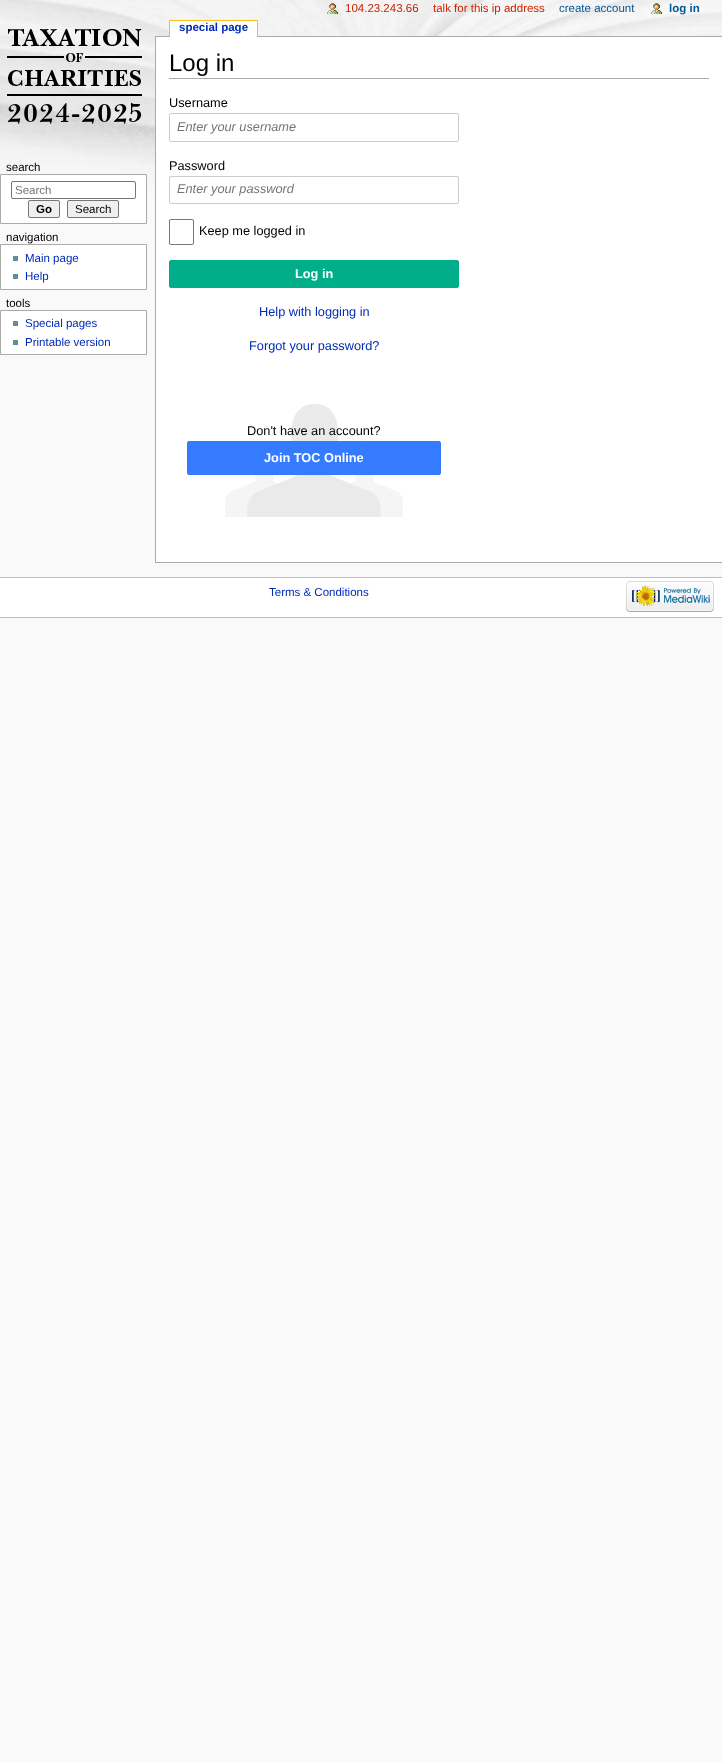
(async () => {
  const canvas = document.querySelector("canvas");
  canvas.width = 722;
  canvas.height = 1762;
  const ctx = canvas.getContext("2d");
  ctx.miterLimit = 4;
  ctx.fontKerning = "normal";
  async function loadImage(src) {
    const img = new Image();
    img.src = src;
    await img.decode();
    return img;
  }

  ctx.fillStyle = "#f9f9f9";
  ctx.fillRect(0, 0, 722, 1762);
  ctx.drawImage(await loadImage("img/1.png"), 0, 0, 722, 194);
  ctx.drawImage(await loadImage("img/2.png"), 327, 3, 11, 11);
  ctx.drawImage(await loadImage("img/3.png"), 651, 3, 11, 11);
  ctx.drawImage(await loadImage("img/4.png"), 7, 29, 135, 95);
  for (const [x, y, w, h, color] of [
    [169, 20, 89, 1, "#fabd23"],
    [257, 20, 1, 16, "#fabd23"],
    [169, 20, 1, 16, "#fabd23"],
    [155, 36, 567, 1, "#aaaaaa"],
    [170, 21, 87, 16, "#ffffff"],
  ]) {
    ctx.fillStyle = color;
    ctx.fillRect(x, y, w, h);
  }
  ctx.beginPath();
  ctx.rect(0.5, 174.5, 146, 49);
  ctx.fill();
  ctx.strokeStyle = "#aaaaaa";
  ctx.stroke();
  ctx.beginPath();
  ctx.roundRect(11.5, 181.5, 124, 17, 1.5);
  ctx.strokeStyle = "#767676";
  ctx.stroke();
  ctx.fillStyle = "#efefef";
  ctx.beginPath();
  ctx.roundRect(28.5, 200.5, 31, 17, 1.5);
  ctx.fill();
  ctx.stroke();
  ctx.beginPath();
  ctx.roundRect(67.5, 200.5, 51, 17, 1.5);
  ctx.fill();
  ctx.stroke();
  ctx.fillStyle = "#ffffff";
  ctx.beginPath();
  ctx.rect(0.5, 244.5, 146, 45);
  ctx.fill();
  ctx.strokeStyle = "#aaaaaa";
  ctx.stroke();
  ctx.fillStyle = "#638c9c";
  ctx.fillRect(13, 256, 5, 5);
  ctx.fillRect(13, 274, 5, 5);
  ctx.fillStyle = "#ffffff";
  ctx.beginPath();
  ctx.rect(0.5, 310.5, 146, 44);
  ctx.fill();
  ctx.stroke();
  for (const [x, y, w, h, color] of [
    [13, 321, 5, 5, "#638c9c"],
    [13, 340, 5, 5, "#638c9c"],
    [156, 37, 566, 525, "#ffffff"],
    [155, 562, 567, 1, "#aaaaaa"],
    [155, 36, 1, 527, "#aaaaaa"],
    [169, 78, 540, 1, "#aaaaaa"],
  ]) {
    ctx.fillStyle = color;
    ctx.fillRect(x, y, w, h);
  }
  ctx.beginPath();
  ctx.roundRect(169.5, 113.5, 289, 28, 1.5);
  ctx.strokeStyle = "#cccccc";
  ctx.stroke();
  ctx.beginPath();
  ctx.roundRect(169.5, 176.5, 289, 27, 1.5);
  ctx.stroke();
  ctx.beginPath();
  ctx.roundRect(169.5, 219.5, 24, 25, 1.5);
  ctx.strokeStyle = "#777777";
  ctx.stroke();
  ctx.fillStyle = "#00af89";
  ctx.beginPath();
  ctx.roundRect(169.5, 260.5, 289, 27, 1.5);
  ctx.fill();
  ctx.strokeStyle = "#00af89";
  ctx.stroke();
  ctx.drawImage(await loadImage("img/5.png"), 225, 404, 178, 113);
  ctx.fillStyle = "#347bff";
  ctx.beginPath();
  ctx.roundRect(187.5, 441.5, 253, 33, 1.5);
  ctx.fill();
  ctx.strokeStyle = "#347bff";
  ctx.stroke();
  for (const [x, y, w, h, color] of [
    [0, 578, 722, 39, "#ffffff"],
    [0, 577, 722, 1, "#fabd23"],
    [0, 617, 722, 1, "#fabd23"],
  ]) {
    ctx.fillStyle = color;
    ctx.fillRect(x, y, w, h);
  }
  ctx.drawImage(await loadImage("img/6.png"), 626, 581, 88, 31);
  ctx.font = "11.5px Liberation Sans";
  ctx.fillStyle = "#cc2200";
  ctx.fillText("104.23.243.66", 345, 12);
  ctx.fillText("talk for this ip address", 433, 12);
  ctx.fillStyle = "#005896";
  ctx.fillText("create account", 559, 12);
  ctx.font = "bold 11.5px Liberation Sans";
  ctx.fillText("log in", 669, 12);
  ctx.fillStyle = "#002bb8";
  ctx.fillText("special page", 179, 31);
  ctx.font = "11.5px Liberation Sans";
  ctx.fillStyle = "#000000";
  ctx.fillText("search", 6, 171);
  ctx.fillStyle = "#757575";
  ctx.fillText("Search", 15, 194);
  ctx.font = "bold 11.5px Liberation Sans";
  ctx.fillStyle = "#000000";
  ctx.fillText("Go", 36, 213);
  ctx.font = "11.5px Liberation Sans";
  ctx.fillText("Search", 75, 213);
  ctx.fillText("navigation", 6, 241);
  ctx.fillStyle = "#002bb8";
  ctx.fillText("Main page", 25, 262);
  ctx.fillText("Help", 25, 280);
  ctx.fillStyle = "#000000";
  ctx.fillText("tools", 6, 307);
  ctx.fillStyle = "#002bb8";
  ctx.fillText("Special pages", 25, 327);
  ctx.fillText("Printable version", 25, 346);
  ctx.font = "24px Liberation Sans";
  ctx.fillStyle = "#000000";
  ctx.fillText("Log in", 169, 71);
  ctx.font = "12.75px Liberation Sans";
  ctx.fillText("Username", 169, 107);
  ctx.font = "italic 12.75px Liberation Sans";
  ctx.fillStyle = "#757575";
  ctx.fillText("Enter your username", 177, 131);
  ctx.font = "12.75px Liberation Sans";
  ctx.fillStyle = "#000000";
  ctx.fillText("Password", 169, 170);
  ctx.font = "italic 12.75px Liberation Sans";
  ctx.fillStyle = "#757575";
  ctx.fillText("Enter your password", 177, 193);
  ctx.font = "12.75px Liberation Sans";
  ctx.fillStyle = "#000000";
  ctx.fillText("Keep me logged in", 199, 235);
  ctx.font = "bold 12.75px Liberation Sans";
  ctx.fillStyle = "#ffffff";
  ctx.fillText("Log in", 295, 278);
  ctx.font = "12.75px Liberation Sans";
  ctx.fillStyle = "#002bb8";
  ctx.fillText("Help with logging in", 259, 316);
  ctx.fillText("Forgot your password?", 249, 350);
  ctx.fillStyle = "#000000";
  ctx.fillText("Don't have an account?", 247, 435);
  ctx.font = "bold 12.75px Liberation Sans";
  ctx.fillStyle = "#ffffff";
  ctx.fillText("Join TOC Online", 264, 462);
  ctx.font = "11.5px Liberation Sans";
  ctx.fillStyle = "#002bb8";
  ctx.fillText("Terms & Conditions", 269, 596);
})();
